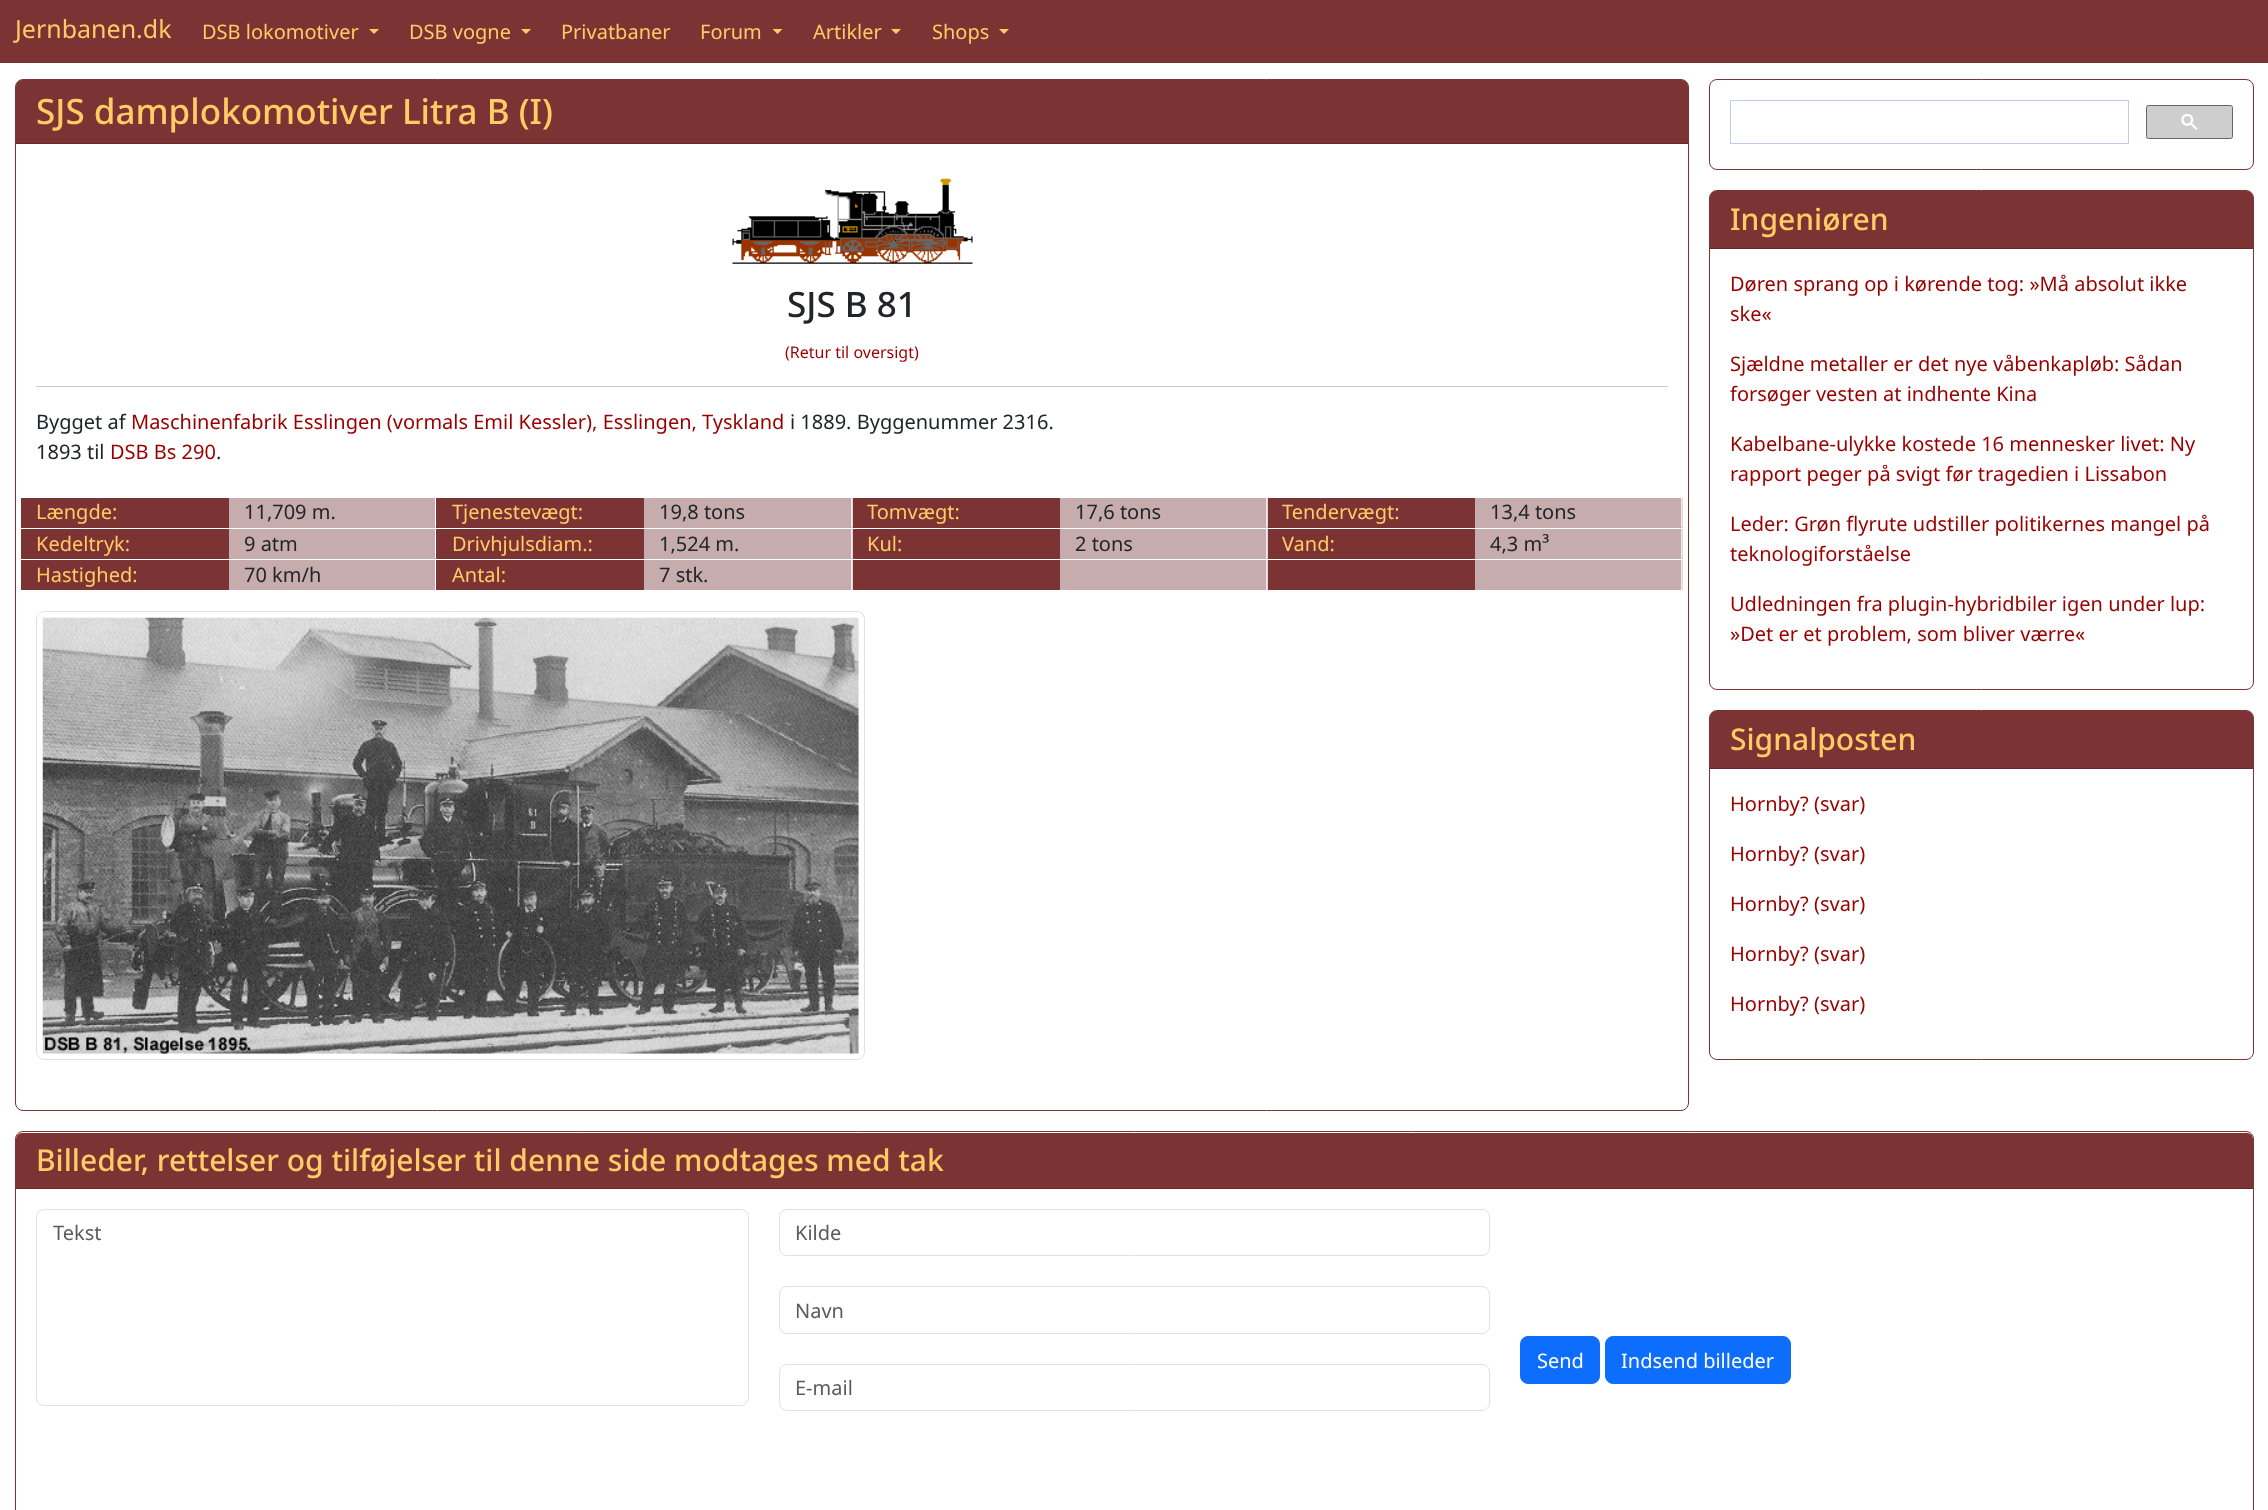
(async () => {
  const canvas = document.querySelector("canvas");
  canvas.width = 2268;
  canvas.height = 1510;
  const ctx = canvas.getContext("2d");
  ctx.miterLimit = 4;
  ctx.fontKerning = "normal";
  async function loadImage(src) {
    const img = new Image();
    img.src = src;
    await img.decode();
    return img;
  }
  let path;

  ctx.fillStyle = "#ffffff";
  ctx.fillRect(0, 0, 2268, 1510);
  ctx.fillStyle = "#7c3333";
  ctx.fillRect(0, 0, 2268, 63);
  ctx.fillStyle = "#ffcc66";
  path = new Path2D("M369 29H379L374 34Z");
  ctx.fill(path);
  path = new Path2D("M521 29H531L526 34Z");
  ctx.fill(path);
  path = new Path2D("M772.5 29H782.5L777.5 34Z");
  ctx.fill(path);
  path = new Path2D("M891 29H901L896 34Z");
  ctx.fill(path);
  path = new Path2D("M999 29H1009L1004 34Z");
  ctx.fill(path);
  ctx.beginPath();
  ctx.roundRect(15.5, 79.5, 1673, 1031, 7.5);
  ctx.strokeStyle = "#7c3333";
  ctx.stroke();
  ctx.fillStyle = "#7c3333";
  ctx.beginPath();
  ctx.roundRect(16, 80, 1672, 64, [6, 6, 0, 0]);
  ctx.fill();
  ctx.fillStyle = "#662a2a";
  ctx.fillRect(16, 143, 1672, 1);
  ctx.drawImage(await loadImage("img/1.png"), 732, 178, 241, 86);
  for (const [x, y, w, h, color] of [
    [36, 386, 1632, 1, "#c8c9ca"],
    [21, 498, 208, 30, "#7c3333"],
    [229, 498, 207, 30, "#c6acac"],
  ]) {
    ctx.fillStyle = color;
    ctx.fillRect(x, y, w, h);
  }
  ctx.drawImage(await loadImage("img/2.png"), 435, 498, 1, 30);
  ctx.fillStyle = "#7c3333";
  ctx.fillRect(436, 498, 208, 30);
  ctx.fillStyle = "#c6acac";
  ctx.fillRect(644, 498, 209, 30);
  ctx.drawImage(await loadImage("img/3.png"), 851, 498, 2, 30);
  ctx.fillStyle = "#7c3333";
  ctx.fillRect(853, 498, 207, 30);
  ctx.fillStyle = "#c6acac";
  ctx.fillRect(1060, 498, 208, 30);
  ctx.drawImage(await loadImage("img/3.png"), 1266, 498, 2, 30);
  ctx.fillStyle = "#7c3333";
  ctx.fillRect(1268, 498, 207, 30);
  ctx.fillStyle = "#c6acac";
  ctx.fillRect(1475, 498, 208, 30);
  ctx.drawImage(await loadImage("img/3.png"), 1681, 498, 2, 30);
  ctx.fillStyle = "#7c3333";
  ctx.fillRect(21, 529, 208, 30);
  ctx.fillStyle = "#c6acac";
  ctx.fillRect(229, 529, 207, 30);
  ctx.drawImage(await loadImage("img/4.png"), 435, 529, 1, 30);
  ctx.fillStyle = "#7c3333";
  ctx.fillRect(436, 529, 208, 30);
  ctx.fillStyle = "#c6acac";
  ctx.fillRect(644, 529, 209, 30);
  ctx.drawImage(await loadImage("img/5.png"), 851, 529, 2, 30);
  ctx.fillStyle = "#7c3333";
  ctx.fillRect(853, 529, 207, 30);
  ctx.fillStyle = "#c6acac";
  ctx.fillRect(1060, 529, 208, 30);
  ctx.drawImage(await loadImage("img/5.png"), 1266, 529, 2, 30);
  ctx.fillStyle = "#7c3333";
  ctx.fillRect(1268, 529, 207, 30);
  ctx.fillStyle = "#c6acac";
  ctx.fillRect(1475, 529, 208, 30);
  ctx.drawImage(await loadImage("img/5.png"), 1681, 529, 2, 30);
  for (const [x, y, w, h, color] of [
    [21, 560, 208, 30, "#7c3333"],
    [229, 560, 206, 30, "#c6acac"],
    [436, 560, 208, 30, "#7c3333"],
    [644, 560, 209, 30, "#c6acac"],
  ]) {
    ctx.fillStyle = color;
    ctx.fillRect(x, y, w, h);
  }
  ctx.drawImage(await loadImage("img/6.png"), 851, 560, 2, 30);
  ctx.fillStyle = "#7c3333";
  ctx.fillRect(853, 560, 207, 30);
  ctx.fillStyle = "#c6acac";
  ctx.fillRect(1060, 560, 208, 30);
  ctx.drawImage(await loadImage("img/6.png"), 1266, 560, 2, 30);
  ctx.fillStyle = "#7c3333";
  ctx.fillRect(1268, 560, 207, 30);
  ctx.fillStyle = "#c6acac";
  ctx.fillRect(1475, 560, 208, 30);
  ctx.drawImage(await loadImage("img/6.png"), 1681, 560, 2, 30);
  ctx.beginPath();
  ctx.roundRect(36.5, 611.5, 828, 448, 7.5);
  ctx.strokeStyle = "#dee2e6";
  ctx.stroke();
  ctx.drawImage(await loadImage("img/7.png"), 42, 617, 817, 437);
  ctx.beginPath();
  ctx.roundRect(1709.5, 79.5, 544, 90, 7.5);
  ctx.strokeStyle = "#7c3333";
  ctx.stroke();
  ctx.strokeStyle = "#bccdf0";
  ctx.strokeRect(1730.5, 100.5, 398, 43);
  ctx.fillStyle = "#cecece";
  ctx.beginPath();
  ctx.roundRect(2146.5, 105.5, 86, 33, 2);
  ctx.fill();
  ctx.strokeStyle = "#666666";
  ctx.stroke();
  ctx.drawImage(await loadImage("img/8.png"), 2181, 114, 17, 16);
  ctx.beginPath();
  ctx.roundRect(1709.5, 190.5, 544, 499, 7.5);
  ctx.strokeStyle = "#7c3333";
  ctx.stroke();
  ctx.fillStyle = "#7c3333";
  ctx.beginPath();
  ctx.roundRect(1710, 191, 543, 58, [6, 6, 0, 0]);
  ctx.fill();
  ctx.fillStyle = "#662a2a";
  ctx.fillRect(1710, 248, 543, 1);
  ctx.beginPath();
  ctx.roundRect(1709.5, 710.5, 544, 349, 7.5);
  ctx.stroke();
  ctx.fillStyle = "#7c3333";
  ctx.beginPath();
  ctx.roundRect(1710, 711, 543, 58, [6, 6, 0, 0]);
  ctx.fill();
  ctx.fillStyle = "#662a2a";
  ctx.fillRect(1710, 768, 543, 1);
  ctx.beginPath();
  ctx.roundRect(15.5, 1131.5, 2238, 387, 7.5);
  ctx.stroke();
  ctx.fillStyle = "#7c3333";
  ctx.beginPath();
  ctx.roundRect(16, 1133, 2237, 56, [6, 6, 0, 0]);
  ctx.fill();
  ctx.fillStyle = "#662a2a";
  ctx.fillRect(16, 1188, 2237, 1);
  ctx.beginPath();
  ctx.roundRect(36.5, 1209.5, 712, 196, 7.5);
  ctx.strokeStyle = "#dee2e6";
  ctx.stroke();
  ctx.beginPath();
  ctx.roundRect(779.5, 1209.5, 710, 46, 7.5);
  ctx.stroke();
  ctx.beginPath();
  ctx.roundRect(779.5, 1286.5, 710, 47, 7.5);
  ctx.stroke();
  ctx.beginPath();
  ctx.roundRect(779.5, 1364.5, 710, 46, 7.5);
  ctx.stroke();
  ctx.fillStyle = "#0d6efd";
  ctx.beginPath();
  ctx.roundRect(1520.5, 1336.5, 79, 47, 7.5);
  ctx.fill();
  ctx.strokeStyle = "#0d6efd";
  ctx.stroke();
  ctx.beginPath();
  ctx.roundRect(1605.5, 1336.5, 185, 47, 7.5);
  ctx.fill();
  ctx.stroke();
  ctx.font = "25px Noto Sans";
  ctx.fillStyle = "#ffcc66";
  ctx.fillText("Jernbanen.dk", 15, 38);
  ctx.font = "20px Noto Sans";
  for (const [text, x, y] of [
    ["DSB lokomotiver", 202, 39],
    ["DSB vogne", 409, 39],
    ["Privatbaner", 561, 39],
    ["Forum", 700, 39],
    ["Artikler", 813, 39],
    ["Shops", 932, 39],
  ]) {
    ctx.fillText(text, x, y);
  }
  ctx.font = "500 35px Noto Sans";
  ctx.fillText("SJS damplokomotiver Litra B (I)", 36, 124);
  ctx.fillStyle = "#212529";
  ctx.fillText("SJS B 81", 787, 317);
  ctx.font = "16px Noto Sans";
  ctx.fillStyle = "#990000";
  ctx.fillText("(Retur til oversigt)", 785, 358);
  ctx.font = "20px Noto Sans";
  ctx.fillStyle = "#212529";
  ctx.fillText("Bygget af", 36, 429);
  ctx.fillStyle = "#990000";
  ctx.fillText("Maschinenfabrik Esslingen (vormals Emil Kessler), Esslingen, Tyskland", 131, 429);
  ctx.fillStyle = "#212529";
  ctx.fillText("i 1889. Byggenummer 2316.", 790, 429);
  ctx.fillText("1893 til", 36, 459);
  ctx.fillStyle = "#990000";
  ctx.fillText("DSB Bs 290", 110, 459);
  ctx.fillStyle = "#212529";
  ctx.fillText(".", 216, 459);
  ctx.fillStyle = "#ffcc66";
  ctx.fillText("Længde:", 36, 519);
  ctx.fillStyle = "#212529";
  ctx.fillText("11,709 m.", 244, 519);
  ctx.fillStyle = "#ffcc66";
  ctx.fillText("Tjenestevægt:", 452, 519);
  ctx.fillStyle = "#212529";
  ctx.fillText("19,8 tons", 659, 519);
  ctx.fillStyle = "#ffcc66";
  ctx.fillText("Tomvægt:", 867, 519);
  ctx.fillStyle = "#212529";
  ctx.fillText("17,6 tons", 1075, 519);
  ctx.fillStyle = "#ffcc66";
  ctx.fillText("Tendervægt:", 1282, 519);
  ctx.fillStyle = "#212529";
  ctx.fillText("13,4 tons", 1490, 519);
  ctx.fillStyle = "#ffcc66";
  ctx.fillText("Kedeltryk:", 36, 551);
  ctx.fillStyle = "#212529";
  ctx.fillText("9 atm", 244, 551);
  ctx.fillStyle = "#ffcc66";
  ctx.fillText("Drivhjulsdiam.:", 452, 551);
  ctx.fillStyle = "#212529";
  ctx.fillText("1,524 m.", 659, 551);
  ctx.fillStyle = "#ffcc66";
  ctx.fillText("Kul:", 867, 551);
  ctx.fillStyle = "#212529";
  ctx.fillText("2 tons", 1075, 551);
  ctx.fillStyle = "#ffcc66";
  ctx.fillText("Vand:", 1282, 551);
  ctx.fillStyle = "#212529";
  ctx.fillText("4,3 m³", 1490, 551);
  ctx.fillStyle = "#ffcc66";
  ctx.fillText("Hastighed:", 36, 582);
  ctx.fillStyle = "#212529";
  ctx.fillText("70 km/h", 244, 582);
  ctx.fillStyle = "#ffcc66";
  ctx.fillText("Antal:", 452, 582);
  ctx.fillStyle = "#212529";
  ctx.fillText("7 stk.", 659, 582);
  ctx.font = "500 30px Noto Sans";
  ctx.fillStyle = "#ffcc66";
  ctx.fillText("Ingeniøren", 1730, 230);
  ctx.font = "20px Noto Sans";
  ctx.fillStyle = "#990000";
  for (const [text, x, y] of [
    ["Døren sprang op i kørende tog: »Må absolut ikke", 1730, 291],
    ["ske«", 1730, 321],
    ["Sjældne metaller er det nye våbenkapløb: Sådan", 1730, 371],
    ["forsøger vesten at indhente Kina", 1730, 401],
    ["Kabelbane-ulykke kostede 16 mennesker livet: Ny", 1730, 451],
    ["rapport peger på svigt før tragedien i Lissabon", 1730, 481],
    ["Leder: Grøn flyrute udstiller politikernes mangel på", 1730, 531],
    ["teknologiforståelse", 1730, 561],
    ["Udledningen fra plugin-hybridbiler igen under lup:", 1730, 611],
    ["»Det er et problem, som bliver værre«", 1730, 641],
  ]) {
    ctx.fillText(text, x, y);
  }
  ctx.font = "500 30px Noto Sans";
  ctx.fillStyle = "#ffcc66";
  ctx.fillText("Signalposten", 1730, 750);
  ctx.font = "20px Noto Sans";
  ctx.fillStyle = "#990000";
  for (const [text, x, y] of [
    ["Hornby? (svar)", 1730, 811],
    ["Hornby? (svar)", 1730, 861],
    ["Hornby? (svar)", 1730, 911],
    ["Hornby? (svar)", 1730, 961],
    ["Hornby? (svar)", 1730, 1011],
  ]) {
    ctx.fillText(text, x, y);
  }
  ctx.font = "500 30px Noto Sans";
  ctx.fillStyle = "#ffcc66";
  ctx.fillText("Billeder, rettelser og tilføjelser til denne side modtages med tak", 36, 1171);
  ctx.font = "20px Noto Sans";
  ctx.fillStyle = "#595c5f";
  for (const [text, x, y] of [
    ["Tekst", 53, 1240],
    ["Kilde", 795, 1240],
    ["Navn", 795, 1318],
    ["E-mail", 795, 1395],
  ]) {
    ctx.fillText(text, x, y);
  }
  ctx.fillStyle = "#ffffff";
  ctx.fillText("Send", 1537, 1368);
  ctx.fillText("Indsend billeder", 1621, 1368);
})();
